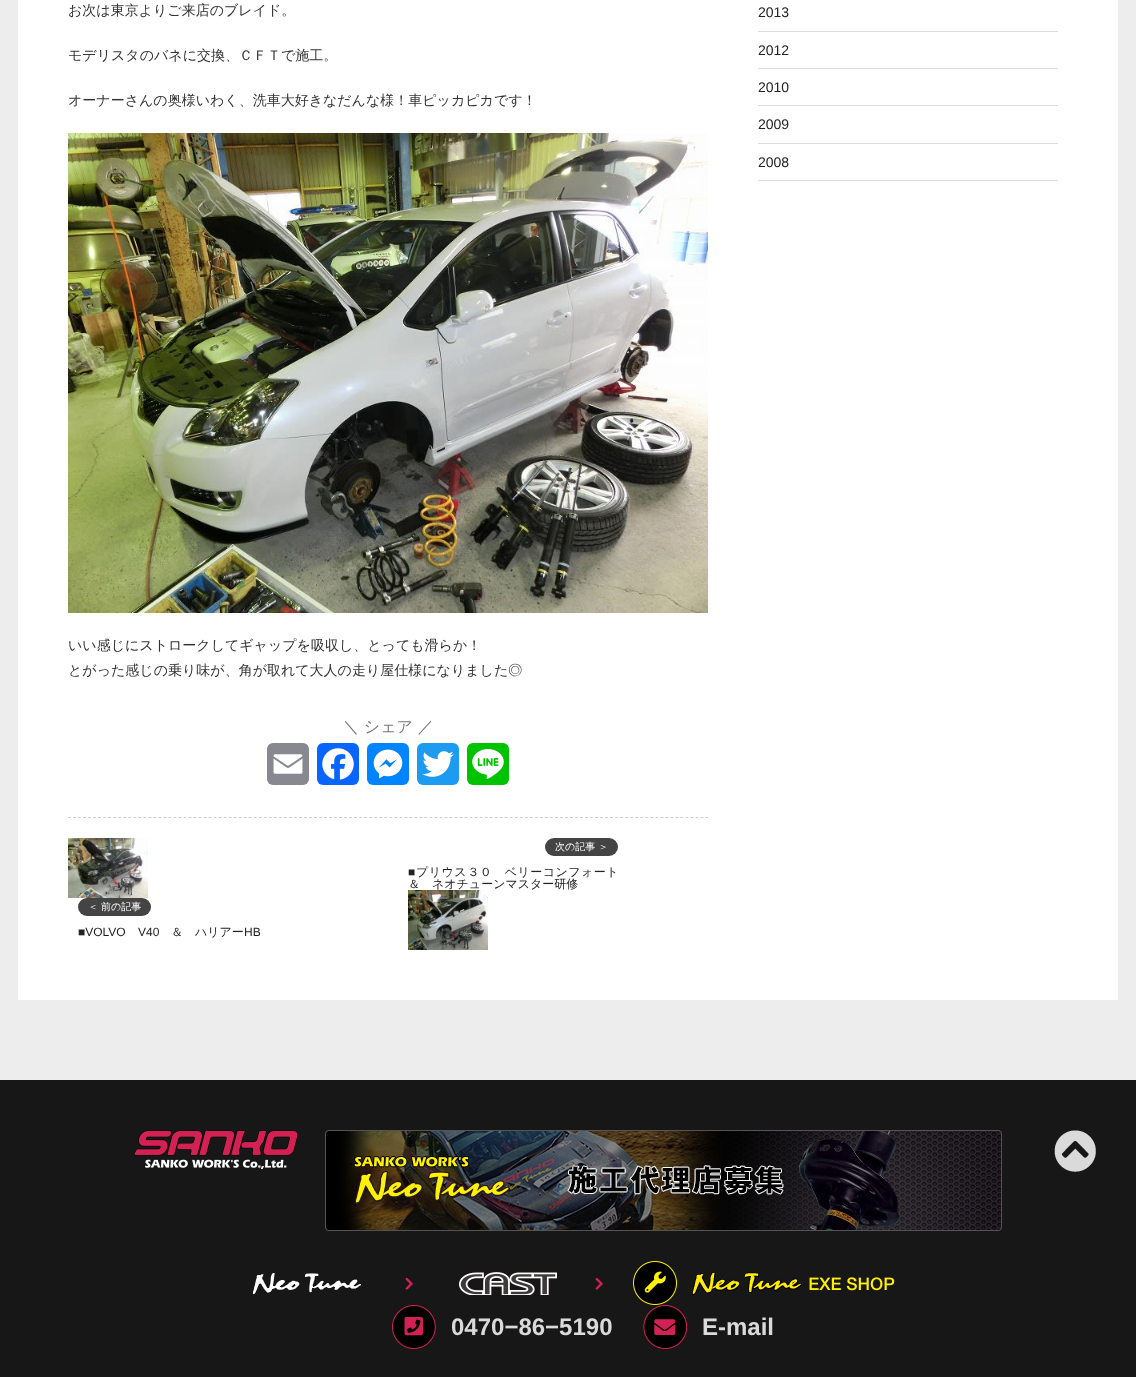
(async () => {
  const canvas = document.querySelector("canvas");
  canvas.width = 1136;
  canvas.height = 1377;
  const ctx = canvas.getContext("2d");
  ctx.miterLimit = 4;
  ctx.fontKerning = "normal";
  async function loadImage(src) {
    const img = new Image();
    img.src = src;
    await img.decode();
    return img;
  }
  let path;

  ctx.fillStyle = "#ededed";
  ctx.fillRect(0, 0, 1136, 1377);
  ctx.fillStyle = "#ffffff";
  ctx.fillRect(18, 0, 1100, 1000);
  ctx.drawImage(await loadImage("img/1.png"), 68, 133, 640, 480);
  ctx.fillStyle = "#888990";
  ctx.beginPath();
  ctx.roundRect(267, 743, 42, 42, 6);
  ctx.fill();
  ctx.drawImage(await loadImage("img/2.png"), 273, 754, 30, 20);
  ctx.fillStyle = "#0866ff";
  ctx.beginPath();
  ctx.roundRect(317, 743, 42, 42, 6);
  ctx.fill();
  ctx.drawImage(await loadImage("img/3.png"), 322, 748, 32, 32);
  ctx.fillStyle = "#0084ff";
  ctx.beginPath();
  ctx.roundRect(367, 743, 42, 42, 6);
  ctx.fill();
  ctx.drawImage(await loadImage("img/4.png"), 373, 749, 30, 30);
  ctx.fillStyle = "#1d9bf0";
  ctx.beginPath();
  ctx.roundRect(417, 743, 42, 42, 6);
  ctx.fill();
  ctx.drawImage(await loadImage("img/5.png"), 422, 751, 32, 26);
  ctx.fillStyle = "#00c300";
  ctx.beginPath();
  ctx.roundRect(467, 743, 42, 42, 6);
  ctx.fill();
  ctx.drawImage(await loadImage("img/6.png"), 472, 749, 32, 30);
  path = new Path2D("M68 817.5H708");
  ctx.strokeStyle = "#cccccc";
  ctx.setLineDash([3, 2.02]);
  ctx.stroke(path);
  ctx.fillStyle = "#444444";
  ctx.beginPath();
  ctx.roundRect(545, 838, 73, 18, 9);
  ctx.fill();
  ctx.drawImage(await loadImage("img/7.png"), 408, 890, 80, 60);
  ctx.drawImage(await loadImage("img/8.png"), 68, 838, 80, 60);
  ctx.beginPath();
  ctx.roundRect(78, 898, 73, 18, 9);
  ctx.fill();
  for (const [x, y, w, h, color] of [
    [758, 31, 300, 1, "#dddddd"],
    [758, 68, 300, 1, "#dddddd"],
    [758, 105, 300, 1, "#dddddd"],
    [758, 143, 300, 1, "#dddddd"],
    [758, 180, 300, 1, "#dddddd"],
    [0, 1080, 1136, 297, "#171717"],
  ]) {
    ctx.fillStyle = color;
    ctx.fillRect(x, y, w, h);
  }
  ctx.drawImage(await loadImage("img/9.png"), 134, 1130, 164, 39);
  ctx.drawImage(await loadImage("img/10.png"), 325, 1130, 677, 101);
  ctx.drawImage(await loadImage("img/11.png"), 1054, 1130, 42, 42);
  ctx.drawImage(await loadImage("img/12.png"), 253, 1273, 108, 21);
  ctx.drawImage(await loadImage("img/13.png"), 405, 1277, 8, 13);
  ctx.drawImage(await loadImage("img/14.png"), 459, 1272, 98, 23);
  ctx.drawImage(await loadImage("img/13.png"), 595, 1277, 8, 13);
  ctx.drawImage(await loadImage("img/15.png"), 633, 1261, 44, 44);
  ctx.drawImage(await loadImage("img/16.png"), 692, 1272, 203, 23);
  ctx.drawImage(await loadImage("img/17.png"), 392, 1305, 44, 44);
  ctx.drawImage(await loadImage("img/18.png"), 643, 1305, 44, 44);
  ctx.font = "500 14px WenQuanYi Zen Hei";
  ctx.fillStyle = "#333333";
  for (const [text, x, y] of [
    ["お次は東京よりご来店のブレイド。", 68, 15],
    ["モデリスタのバネに交換、ＣＦＴで施工。", 68, 60],
    ["オーナーさんの奥様いわく、洗車大好きなだんな様！車ピッカピカです！", 68, 105],
    ["いい感じにストロークしてギャップを吸収し、とっても滑らか！", 68, 650],
    ["とがった感じの乗り味が、角が取れて大人の走り屋仕様になりました◎", 68, 675],
  ]) {
    ctx.fillText(text, x, y);
  }
  ctx.font = "500 16px WenQuanYi Zen Hei";
  ctx.fillStyle = "#777777";
  ctx.fillText("＼ シェア ／", 343, 732);
  ctx.font = "500 10px WenQuanYi Zen Hei";
  ctx.fillStyle = "#ffffff";
  ctx.fillText("次の記事 ＞", 555, 850);
  ctx.letterSpacing = "0.5px";
  ctx.font = "12px Liberation Sans";
  ctx.fillStyle = "#222222";
  ctx.fillText("■", 408, 876);
  ctx.font = "500 12px WenQuanYi Zen Hei";
  ctx.fillText("プリウス３０　ベリーコンフォート", 416, 876);
  ctx.letterSpacing = "0px";
  ctx.fillText("＆　ネオチューンマスター研修", 408, 888);
  ctx.font = "500 10px WenQuanYi Zen Hei";
  ctx.fillStyle = "#ffffff";
  ctx.fillText("＜ 前の記事", 88, 910);
  ctx.font = "12px Liberation Sans";
  ctx.fillStyle = "#222222";
  ctx.fillText("■VOLVO", 78, 936);
  ctx.fillText("V40", 138, 936);
  ctx.font = "500 12px WenQuanYi Zen Hei";
  ctx.fillText("＆　ハリアー", 171, 936);
  ctx.font = "12px Liberation Sans";
  ctx.fillText("HB", 244, 936);
  ctx.font = "14px Liberation Sans";
  for (const [text, x, y] of [
    ["2013", 758, 17],
    ["2012", 758, 55],
    ["2010", 758, 92],
    ["2009", 758, 129],
    ["2008", 758, 167],
  ]) {
    ctx.fillText(text, x, y);
  }
  ctx.font = "bold 24px Liberation Sans";
  ctx.fillStyle = "#dadada";
  ctx.fillText("0470−86−5190", 451, 1335);
  ctx.fillText("E-mail", 702, 1335);
})();
